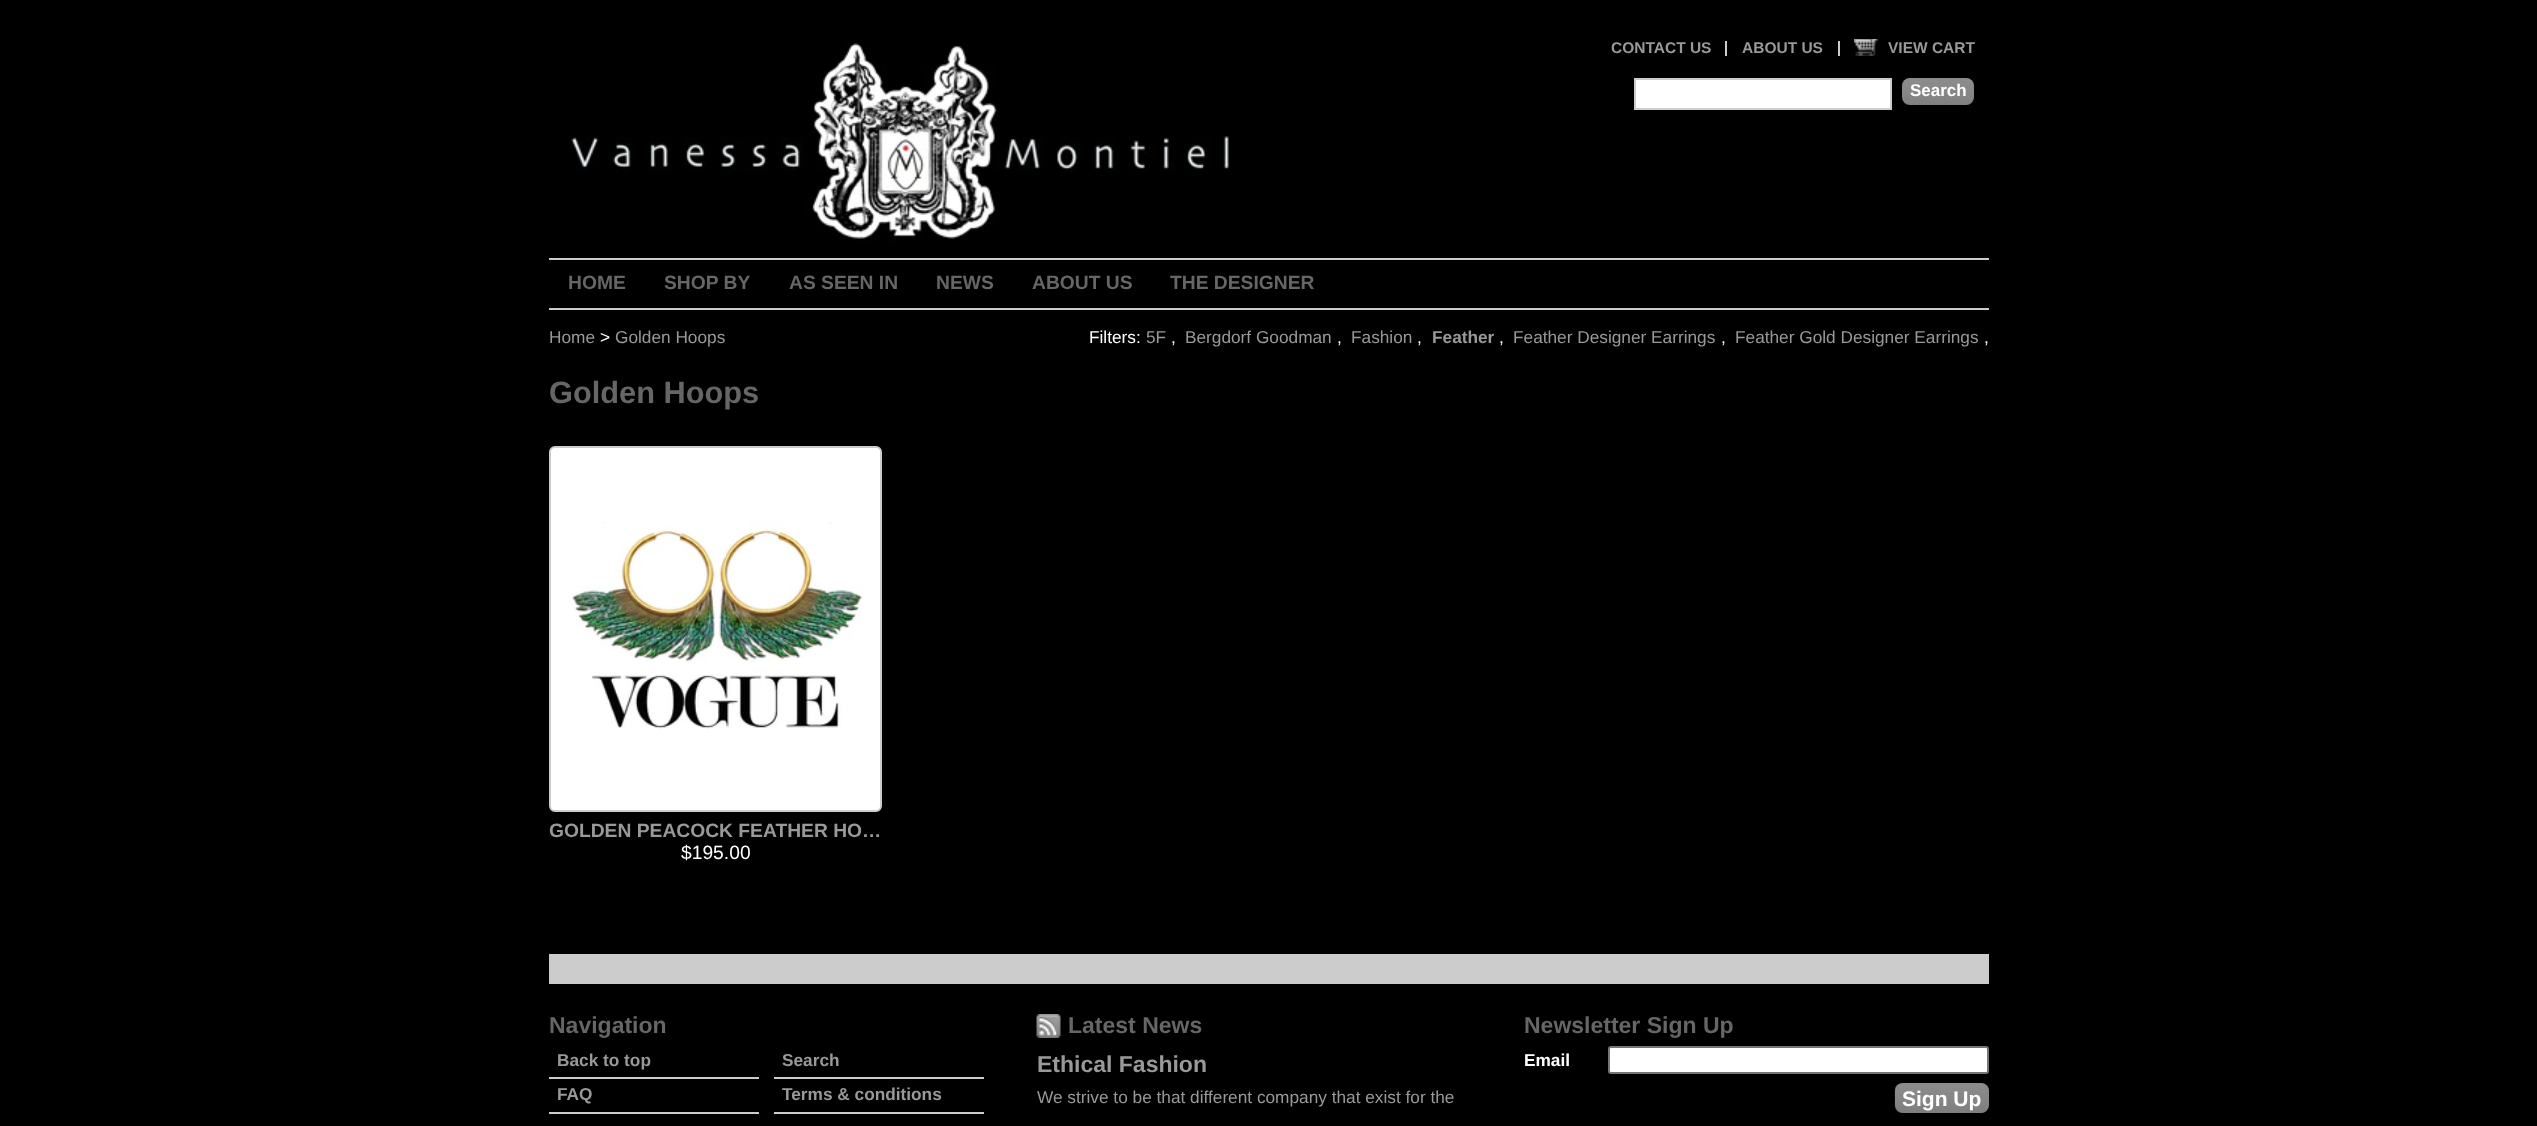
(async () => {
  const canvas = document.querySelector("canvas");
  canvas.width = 2537;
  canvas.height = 1126;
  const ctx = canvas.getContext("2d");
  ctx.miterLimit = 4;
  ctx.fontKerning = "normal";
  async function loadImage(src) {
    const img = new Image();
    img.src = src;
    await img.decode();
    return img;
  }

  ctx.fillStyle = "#000000";
  ctx.fillRect(0, 0, 2537, 1126);
  ctx.drawImage(await loadImage("img/1.png"), 569, 42, 660, 201);
  ctx.fillStyle = "#cccccc";
  ctx.fillRect(1725, 41, 2, 15);
  ctx.fillRect(1838, 41, 2, 15);
  ctx.drawImage(await loadImage("img/2.png"), 1854, 39, 24, 17);
  ctx.fillStyle = "#ffffff";
  ctx.beginPath();
  ctx.rect(1635, 79, 256, 30);
  ctx.fill();
  ctx.strokeStyle = "#cccccc";
  ctx.lineWidth = 2;
  ctx.stroke();
  ctx.fillStyle = "#666666";
  ctx.beginPath();
  ctx.roundRect(1902, 78, 72, 27, 8);
  ctx.fill();
  ctx.drawImage(await loadImage("img/3.png"), 1902, 78, 72, 27);
  ctx.fillStyle = "#cccccc";
  ctx.fillRect(549, 258, 1440, 2);
  ctx.fillRect(549, 308, 1440, 2);
  ctx.fillStyle = "#ffffff";
  ctx.beginPath();
  ctx.roundRect(550, 447, 331, 364, 5);
  ctx.fill();
  ctx.stroke();
  ctx.drawImage(await loadImage("img/4.png"), 569, 522, 294, 207);
  for (const [x, y, w, h, color] of [
    [549, 954, 1440, 30, "#cccccc"],
    [549, 1077, 210, 2, "#cccccc"],
    [774, 1077, 210, 2, "#cccccc"],
    [549, 1112, 210, 2, "#cccccc"],
    [774, 1112, 210, 2, "#cccccc"],
  ]) {
    ctx.fillStyle = color;
    ctx.fillRect(x, y, w, h);
  }
  ctx.drawImage(await loadImage("img/5.png"), 1036, 1014, 25, 24);
  ctx.fillStyle = "#ffffff";
  ctx.beginPath();
  ctx.roundRect(1609, 1047, 379, 26, 2);
  ctx.fill();
  ctx.strokeStyle = "#767676";
  ctx.stroke();
  ctx.fillStyle = "#666666";
  ctx.beginPath();
  ctx.roundRect(1895, 1083, 94, 30, 8);
  ctx.fill();
  ctx.drawImage(await loadImage("img/6.png"), 1894, 1083, 95, 30);
  ctx.font = "bold 15.5px Liberation Sans";
  ctx.fillStyle = "#999999";
  for (const [text, x, y] of [
    ["CONTACT US", 1611, 53],
    ["ABOUT US", 1742, 53],
    ["VIEW CART", 1888, 53],
  ]) {
    ctx.fillText(text, x, y);
  }
  ctx.font = "bold 17px Liberation Sans";
  ctx.fillStyle = "#ffffff";
  ctx.fillText("Search", 1910, 96);
  ctx.font = "bold 19.25px Liberation Sans";
  ctx.fillStyle = "#666666";
  for (const [text, x, y] of [
    ["HOME", 568, 289],
    ["SHOP BY", 664, 289],
    ["AS SEEN IN", 789, 289],
    ["NEWS", 936, 289],
    ["ABOUT US", 1032, 289],
    ["THE DESIGNER", 1170, 289],
  ]) {
    ctx.fillText(text, x, y);
  }
  ctx.font = "17.25px Liberation Sans";
  ctx.fillStyle = "#999999";
  ctx.fillText("Home", 549, 343);
  ctx.fillStyle = "#ffffff";
  ctx.fillText(">", 600, 343);
  ctx.fillStyle = "#999999";
  ctx.fillText("Golden Hoops", 615, 343);
  ctx.fillStyle = "#ffffff";
  ctx.fillText("Filters:", 1089, 343);
  ctx.fillStyle = "#999999";
  ctx.fillText("5F", 1146, 343);
  ctx.fillStyle = "#ffffff";
  ctx.fillText(",", 1171, 343);
  ctx.fillStyle = "#999999";
  ctx.fillText("Bergdorf Goodman", 1185, 343);
  ctx.fillStyle = "#ffffff";
  ctx.fillText(",", 1337, 343);
  ctx.fillStyle = "#999999";
  ctx.fillText("Fashion", 1351, 343);
  ctx.fillStyle = "#ffffff";
  ctx.fillText(",", 1417, 343);
  ctx.font = "bold 17.25px Liberation Sans";
  ctx.fillStyle = "#999999";
  ctx.fillText("Feather", 1432, 343);
  ctx.font = "17.25px Liberation Sans";
  ctx.fillStyle = "#ffffff";
  ctx.fillText(",", 1499, 343);
  ctx.fillStyle = "#999999";
  ctx.fillText("Feather Designer Earrings", 1513, 343);
  ctx.fillStyle = "#ffffff";
  ctx.fillText(",", 1721, 343);
  ctx.fillStyle = "#999999";
  ctx.fillText("Feather Gold Designer Earrings", 1735, 343);
  ctx.fillStyle = "#ffffff";
  ctx.fillText(",", 1984, 343);
  ctx.font = "bold 30.75px Liberation Sans";
  ctx.fillStyle = "#666666";
  ctx.fillText("Golden Hoops", 549, 403);
  ctx.font = "bold 19.25px Liberation Sans";
  ctx.fillStyle = "#999999";
  ctx.fillText("GOLDEN PEACOCK FEATHER HO…", 549, 837);
  ctx.font = "19.25px Liberation Sans";
  ctx.fillStyle = "#ffffff";
  ctx.fillText("$195.00", 681, 859);
  ctx.font = "bold 23px Liberation Sans";
  ctx.fillStyle = "#666666";
  ctx.fillText("Navigation", 549, 1033);
  ctx.font = "bold 17.25px Liberation Sans";
  ctx.fillStyle = "#999999";
  for (const [text, x, y] of [
    ["Back to top", 557, 1066],
    ["Search", 782, 1066],
    ["FAQ", 557, 1100],
    ["Terms & conditions", 782, 1100],
  ]) {
    ctx.fillText(text, x, y);
  }
  ctx.font = "bold 23px Liberation Sans";
  ctx.fillStyle = "#666666";
  ctx.fillText("Latest News", 1068, 1033);
  ctx.fillStyle = "#999999";
  ctx.fillText("Ethical Fashion", 1037, 1072);
  ctx.font = "17.25px Liberation Sans";
  ctx.fillText("We strive to be that different company that exist for the", 1037, 1103);
  ctx.font = "bold 23px Liberation Sans";
  ctx.fillStyle = "#666666";
  ctx.fillText("Newsletter Sign Up", 1524, 1033);
  ctx.font = "bold 17.25px Liberation Sans";
  ctx.fillStyle = "#ffffff";
  ctx.fillText("Email", 1524, 1066);
  ctx.font = "bold 21px Liberation Sans";
  ctx.fillText("Sign Up", 1902, 1106);
})();
